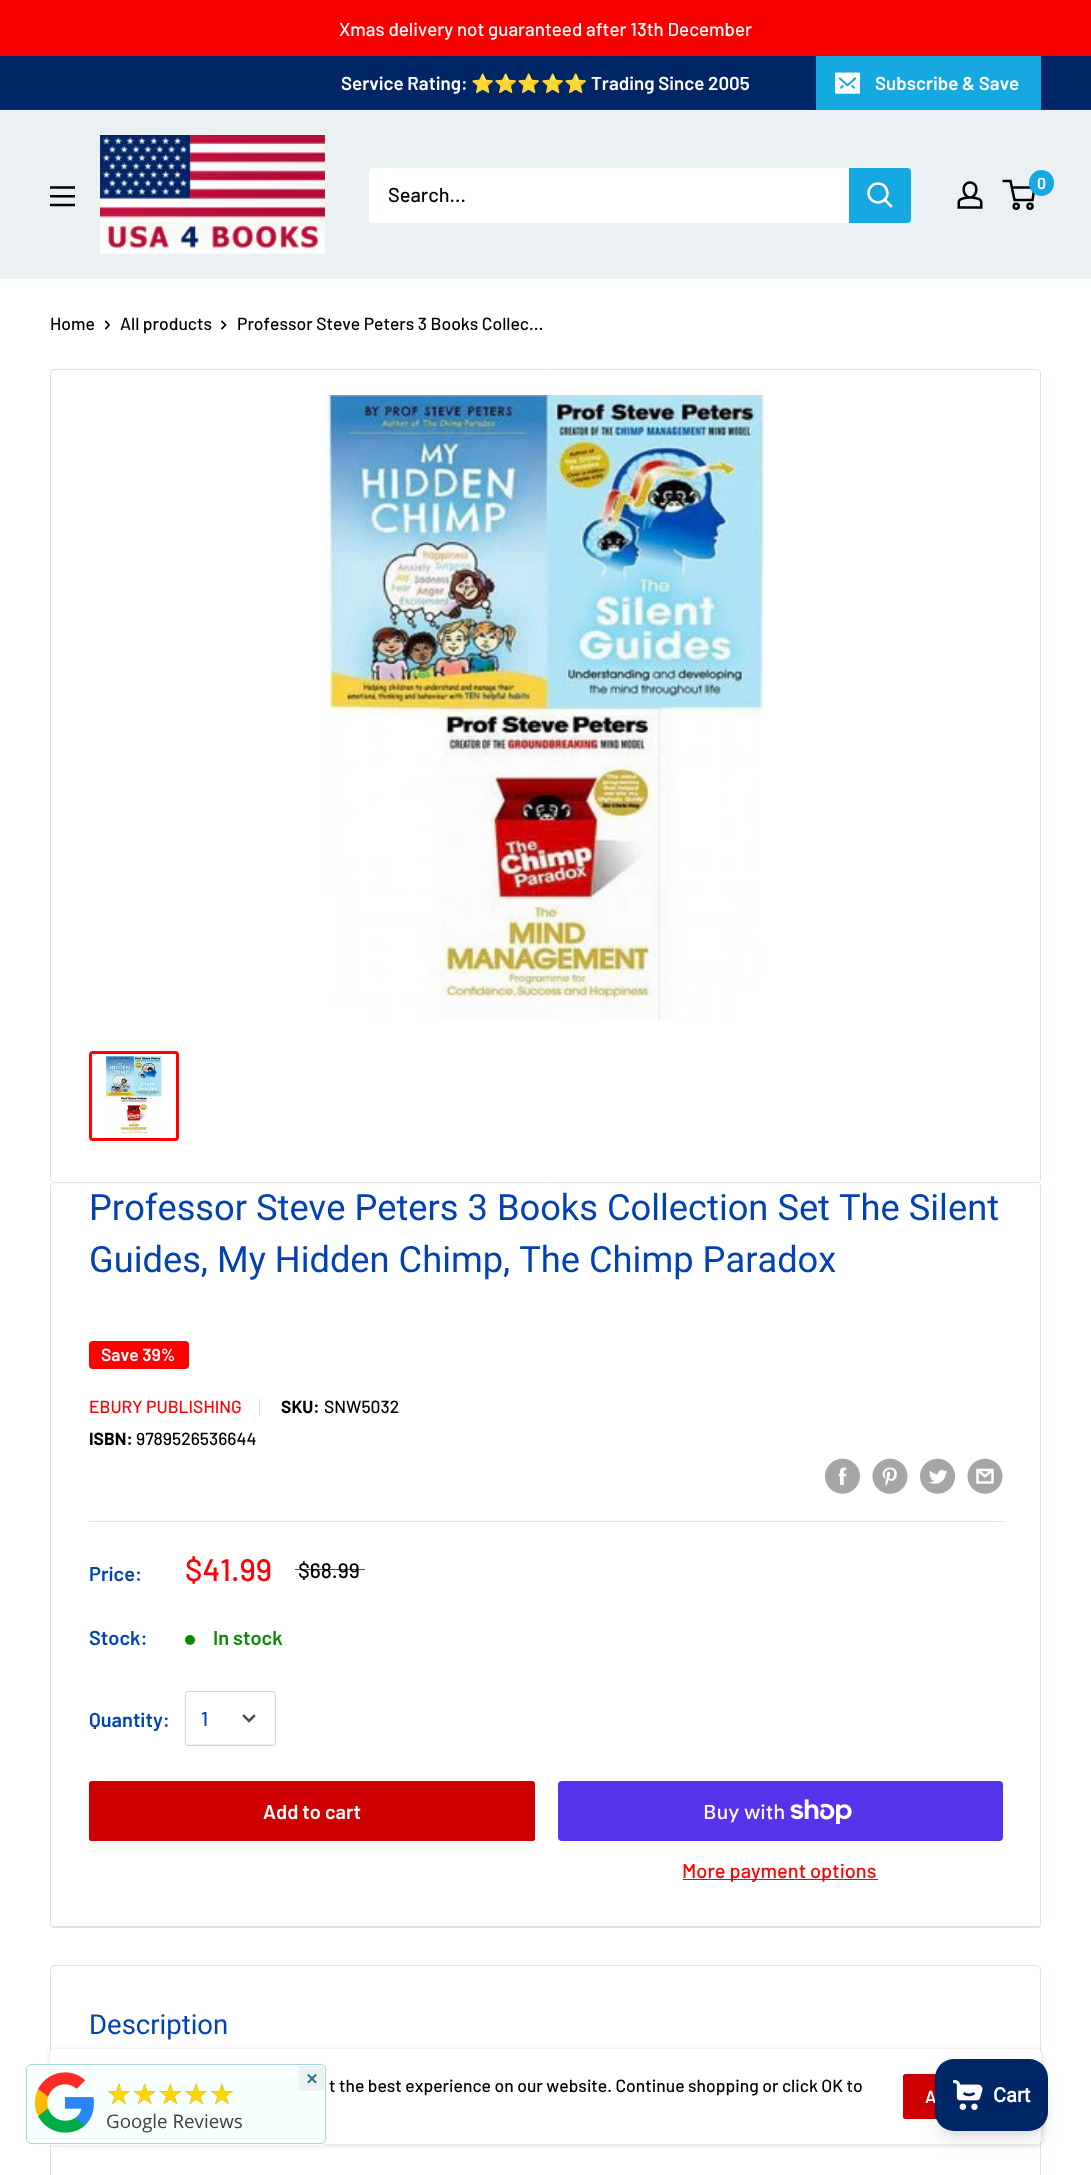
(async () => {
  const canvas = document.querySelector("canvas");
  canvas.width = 1091;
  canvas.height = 2175;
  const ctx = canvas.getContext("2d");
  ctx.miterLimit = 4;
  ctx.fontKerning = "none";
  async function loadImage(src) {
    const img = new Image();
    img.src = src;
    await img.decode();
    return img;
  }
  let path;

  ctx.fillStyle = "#ffffff";
  ctx.fillRect(0, 0, 1091, 2175);
  for (const [x, y, w, h, color] of [
    [0, 0, 1091, 56, "#f90000"],
    [0, 56, 1091, 53, "#002666"],
    [0, 109, 1091, 1, "#4d1b47"],
  ]) {
    ctx.fillStyle = color;
    ctx.fillRect(x, y, w, h);
  }
  ctx.fillStyle = "#16a8e0";
  path = new Path2D("M816 58V110H1041V109H816Z");
  ctx.fill(path);
  ctx.fillRect(816, 56, 225, 53);
  ctx.drawImage(await loadImage("img/1.png"), 835, 72, 25, 22);
  ctx.fillStyle = "#ebf0f2";
  ctx.fillRect(0, 110, 1091, 169);
  ctx.drawImage(await loadImage("img/2.png"), 100, 135, 225, 119);
  ctx.drawImage(await loadImage("img/3.png"), 957, 181, 26, 28);
  ctx.beginPath();
  ctx.arc(1016.2, 206.2, 2.5, 0, Math.PI * 2);
  ctx.strokeStyle = "#000000";
  ctx.lineWidth = 2.5;
  ctx.stroke();
  ctx.beginPath();
  ctx.arc(1030, 206.2, 2.5, 0, Math.PI * 2);
  ctx.stroke();
  path = new Path2D("M1011.5 187.5H1034.5L1032.5 200H1014.5L1010.5 181H1002.5");
  ctx.stroke(path);
  ctx.fillStyle = "#16a8e0";
  ctx.beginPath();
  ctx.roundRect(1029, 170, 25, 26, 12.5);
  ctx.fill();
  ctx.drawImage(await loadImage("img/4.png"), 50, 186, 25, 21);
  ctx.fillStyle = "#ffffff";
  ctx.beginPath();
  ctx.roundRect(369, 168, 542, 55, 4);
  ctx.fill();
  ctx.fillStyle = "#16a8e0";
  ctx.beginPath();
  ctx.roundRect(849, 168, 62, 55, [0, 4, 4, 0]);
  ctx.fill();
  path = new Path2D("M891 206L885 200");
  ctx.strokeStyle = "#ffffff";
  ctx.lineCap = "square";
  ctx.stroke(path);
  ctx.beginPath();
  ctx.arc(878, 193, 9.5, 0, Math.PI * 2);
  ctx.stroke();
  path = new Path2D("M106 321.5L109 325L106 328.5");
  ctx.strokeStyle = "#000000";
  ctx.lineWidth = 1.7;
  ctx.stroke(path);
  path = new Path2D("M222 321.5L225.5 325L222 328.5");
  ctx.stroke(path);
  ctx.beginPath();
  ctx.roundRect(50.5, 369.5, 990, 813, 3.5);
  ctx.strokeStyle = "#dfe2e3";
  ctx.lineWidth = 1;
  ctx.stroke();
  ctx.drawImage(await loadImage("img/5.png"), 321, 395, 445, 625);
  ctx.beginPath();
  ctx.roundRect(90.5, 1052.5, 87, 87, 2.5);
  ctx.strokeStyle = "#ff0000";
  ctx.lineWidth = 3;
  ctx.stroke();
  ctx.drawImage(await loadImage("img/6.png"), 104, 1056, 59, 80);
  ctx.fillStyle = "#ffffff";
  path = new Path2D("M54 1181C51 1181 50 1184 50 1186C50 1184 52 1182 54 1182H1038C1039 1182 1040 1183 1041 1185C1041 1183 1039 1181 1037 1181Z");
  ctx.fill(path);
  ctx.fillStyle = "#dfe2e3";
  path = new Path2D("M54 1182H1038C1040 1182 1041 1184 1041 1186V1924C1041 1926 1040 1928 1038 1928H54C52 1928 50 1926 50 1924V1186C50 1184 52 1182 54 1182ZM54 1182H1038C1039 1182 1040 1184 1040 1186V1924C1040 1925 1039 1926 1038 1926H54C52 1926 51 1925 51 1924V1186C51 1184 52 1182 54 1182Z");
  ctx.fill(path, "evenodd");
  ctx.fillStyle = "#ff0000";
  ctx.beginPath();
  ctx.roundRect(89, 1341, 100, 28, 4);
  ctx.fill();
  ctx.fillStyle = "#dfe2e3";
  ctx.fillRect(259, 1399, 1, 16);
  ctx.drawImage(await loadImage("img/7.png"), 825, 1458, 35, 36);
  ctx.drawImage(await loadImage("img/8.png"), 872, 1458, 36, 36);
  ctx.drawImage(await loadImage("img/9.png"), 920, 1458, 35, 36);
  ctx.drawImage(await loadImage("img/10.png"), 967, 1458, 36, 36);
  ctx.fillRect(89, 1521, 914, 1);
  ctx.fillStyle = "#0b8a06";
  ctx.beginPath();
  ctx.arc(190, 1640, 5, 0, Math.PI * 2);
  ctx.fill();
  ctx.fillStyle = "#f1f3f3";
  path = new Path2D("M186 1743C186 1744 186 1745 187 1745H274C275 1745 275 1744 275 1743L274 1744H193C191 1744 187 1745 186 1743Z");
  ctx.fill(path);
  ctx.beginPath();
  ctx.roundRect(185.5, 1691.5, 90, 54, 2);
  ctx.strokeStyle = "#d1d6d7";
  ctx.lineWidth = 1;
  ctx.stroke();
  path = new Path2D("M254 1716L249 1721L244 1716");
  ctx.strokeStyle = "#4d4d4d";
  ctx.lineWidth = 2.5;
  ctx.stroke(path);
  ctx.fillStyle = "#cd0101";
  ctx.beginPath();
  ctx.roundRect(89, 1781, 446, 60, 2.5);
  ctx.fill();
  ctx.fillStyle = "#5433eb";
  ctx.beginPath();
  ctx.roundRect(558, 1781, 445, 60, 4);
  ctx.fill();
  ctx.drawImage(await loadImage("img/11.png"), 790, 1799, 62, 25);
  ctx.fillStyle = "#ff0000";
  ctx.fillRect(683, 1879, 195, 1);
  ctx.beginPath();
  ctx.roundRect(50.5, 1965.5, 990, 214, 3.5);
  ctx.strokeStyle = "#dfe2e3";
  ctx.lineWidth = 1;
  ctx.stroke();
  ctx.fillStyle = "rgba(0, 0, 0, 0.1)";
  ctx.filter = "blur(2.5px)";
  ctx.beginPath();
  ctx.roundRect(49, 2049, 994, 97, 5);
  ctx.fill();
  ctx.filter = "none";
  ctx.fillStyle = "#ffffff";
  ctx.beginPath();
  ctx.roundRect(50, 2049, 991, 95, 4);
  ctx.fill();
  ctx.fillStyle = "#f8ffff";
  ctx.beginPath();
  ctx.roundRect(25, 2063, 303, 82, 6);
  ctx.fill();
  ctx.beginPath();
  ctx.roundRect(26.5, 2064.5, 299, 79, 4.5);
  ctx.strokeStyle = "#a9d5de";
  ctx.stroke();
  ctx.fillStyle = "#ecf2f2";
  ctx.beginPath();
  ctx.roundRect(299, 2066, 25, 25, 2.5);
  ctx.fill();
  ctx.drawImage(await loadImage("img/12.png"), 34, 2072, 60, 61);
  ctx.fillStyle = "#cd0101";
  ctx.beginPath();
  ctx.roundRect(903, 2074, 101, 45, 2.5);
  ctx.fill();
  ctx.fillStyle = "rgba(0, 0, 0, 0.1)";
  ctx.filter = "blur(4px)";
  ctx.beginPath();
  ctx.roundRect(940, 2069, 103, 62, 14);
  ctx.fill();
  ctx.filter = "none";
  ctx.filter = "blur(9.5px)";
  ctx.beginPath();
  ctx.roundRect(939, 2075, 105, 65, 15);
  ctx.fill();
  ctx.filter = "none";
  ctx.font = "500 18.75px Barlow";
  ctx.fillStyle = "#ffffff";
  ctx.fillText("Xmas delivery not guaranteed after 13th December", 339, 36);
  ctx.font = "600 18.75px Barlow";
  ctx.fillText("Service Rating:", 341, 90);
  ctx.font = "bold 18.75px Noto Color Emoji";
  ctx.fillText("⭐⭐⭐⭐⭐", 471, 90);
  ctx.font = "600 18.75px Barlow";
  ctx.fillText("Trading Since 2005", 591, 90);
  ctx.fillText("Subscribe & Save", 875, 90);
  ctx.font = "600 16px Barlow";
  ctx.fillText("0", 1037, 189);
  ctx.font = "500 20px Barlow";
  ctx.fillStyle = "#000000";
  ctx.fillText("Search...", 388, 202);
  ctx.font = "500 17.5px Barlow";
  for (const [text, x, y] of [
    ["Home", 50, 330],
    ["All products", 120, 330],
    ["Professor Steve Peters 3 Books Collec...", 237, 330],
  ]) {
    ctx.fillText(text, x, y);
  }
  ctx.font = "36.25px Roboto";
  ctx.fillStyle = "#0243b1";
  ctx.fillText("Professor Steve Peters 3 Books Collection Set The Silent", 89, 1220);
  ctx.fillText("Guides, My Hidden Chimp, The Chimp Paradox", 89, 1272);
  ctx.font = "600 17.5px Barlow";
  ctx.fillStyle = "#ffffff";
  ctx.fillText("Save 39%", 101, 1361);
  ctx.font = "500 17.5px Barlow";
  ctx.fillStyle = "#ff0000";
  ctx.fillText("EBURY PUBLISHING", 89, 1413);
  ctx.font = "bold 17.5px Barlow";
  ctx.fillStyle = "#000000";
  ctx.fillText("SKU:", 281, 1413);
  ctx.font = "500 17.5px Barlow";
  ctx.fillText("SNW5032", 324, 1413);
  ctx.font = "bold 17.5px Barlow";
  ctx.fillText("ISBN:", 89, 1445);
  ctx.font = "500 17.5px Barlow";
  ctx.fillText("9789526536644", 136, 1445);
  ctx.font = "600 20px Barlow";
  ctx.fillStyle = "#0243b1";
  ctx.fillText("Price:", 89, 1581);
  ctx.font = "500 31px Barlow";
  ctx.fillStyle = "#ff0000";
  ctx.fillText("$41.99", 185, 1581);
  ctx.font = "500 21px Barlow";
  ctx.fillStyle = "#000000";
  ctx.fillText("$68.99", 298, 1578);
  ctx.fillStyle = "rgba(0, 0, 0, 0.7)";
  ctx.fillRect(295, 1569, 70, 1);
  ctx.font = "600 20px Barlow";
  ctx.fillStyle = "#0243b1";
  ctx.fillText("Stock:", 89, 1645);
  ctx.fillStyle = "#0b8a06";
  ctx.fillText("In stock", 213, 1645);
  ctx.fillStyle = "#0243b1";
  ctx.fillText("Quantity:", 89, 1727);
  ctx.font = "500 20px Barlow";
  ctx.fillText("1", 201, 1726);
  ctx.font = "600 20px Barlow";
  ctx.fillStyle = "#ffffff";
  ctx.fillText("Add to cart", 263, 1819);
  ctx.font = "500 20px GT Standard";
  ctx.fillText("Buy with", 703, 1819);
  ctx.font = "500 20px Barlow";
  ctx.fillStyle = "#ff0000";
  ctx.fillText("More payment options", 682, 1878);
  ctx.font = "27.5px Roboto";
  ctx.fillStyle = "#0243b1";
  ctx.fillText("Description", 89, 2034);
  ctx.font = "bold 20px Open Sans";
  ctx.fillStyle = "#276f86";
  ctx.fillText("×", 306, 2086);
  ctx.font = "28.75px DejaVu Sans";
  ctx.fillStyle = "#808080";
  ctx.fillText("★★★★★", 106, 2104);
  ctx.fillStyle = "#ffd700";
  ctx.fillText("★★★★★", 106, 2104);
  ctx.font = "18.75px Open Sans";
  ctx.fillStyle = "#404040";
  ctx.fillText("Google Reviews", 106, 2128);
  ctx.font = "500 17.5px Barlow";
  ctx.fillStyle = "#000000";
  ctx.fillText("t the best experience on our website. Continue shopping or click OK to", 329, 2092);
  ctx.font = "600 17.5px Barlow";
  ctx.fillStyle = "#ffffff";
  ctx.fillText("A", 925, 2103);
  ctx.fillStyle = "#002666";
  ctx.beginPath();
  ctx.roundRect(935, 2059, 113, 72, 19);
  ctx.fill();
  ctx.drawImage(await loadImage("img/13.png"), 953, 2080, 30, 30);
  ctx.font = "bold 20px Roboto";
  ctx.fillStyle = "#ffffff";
  ctx.fillText("Cart", 993, 2102);
})();
